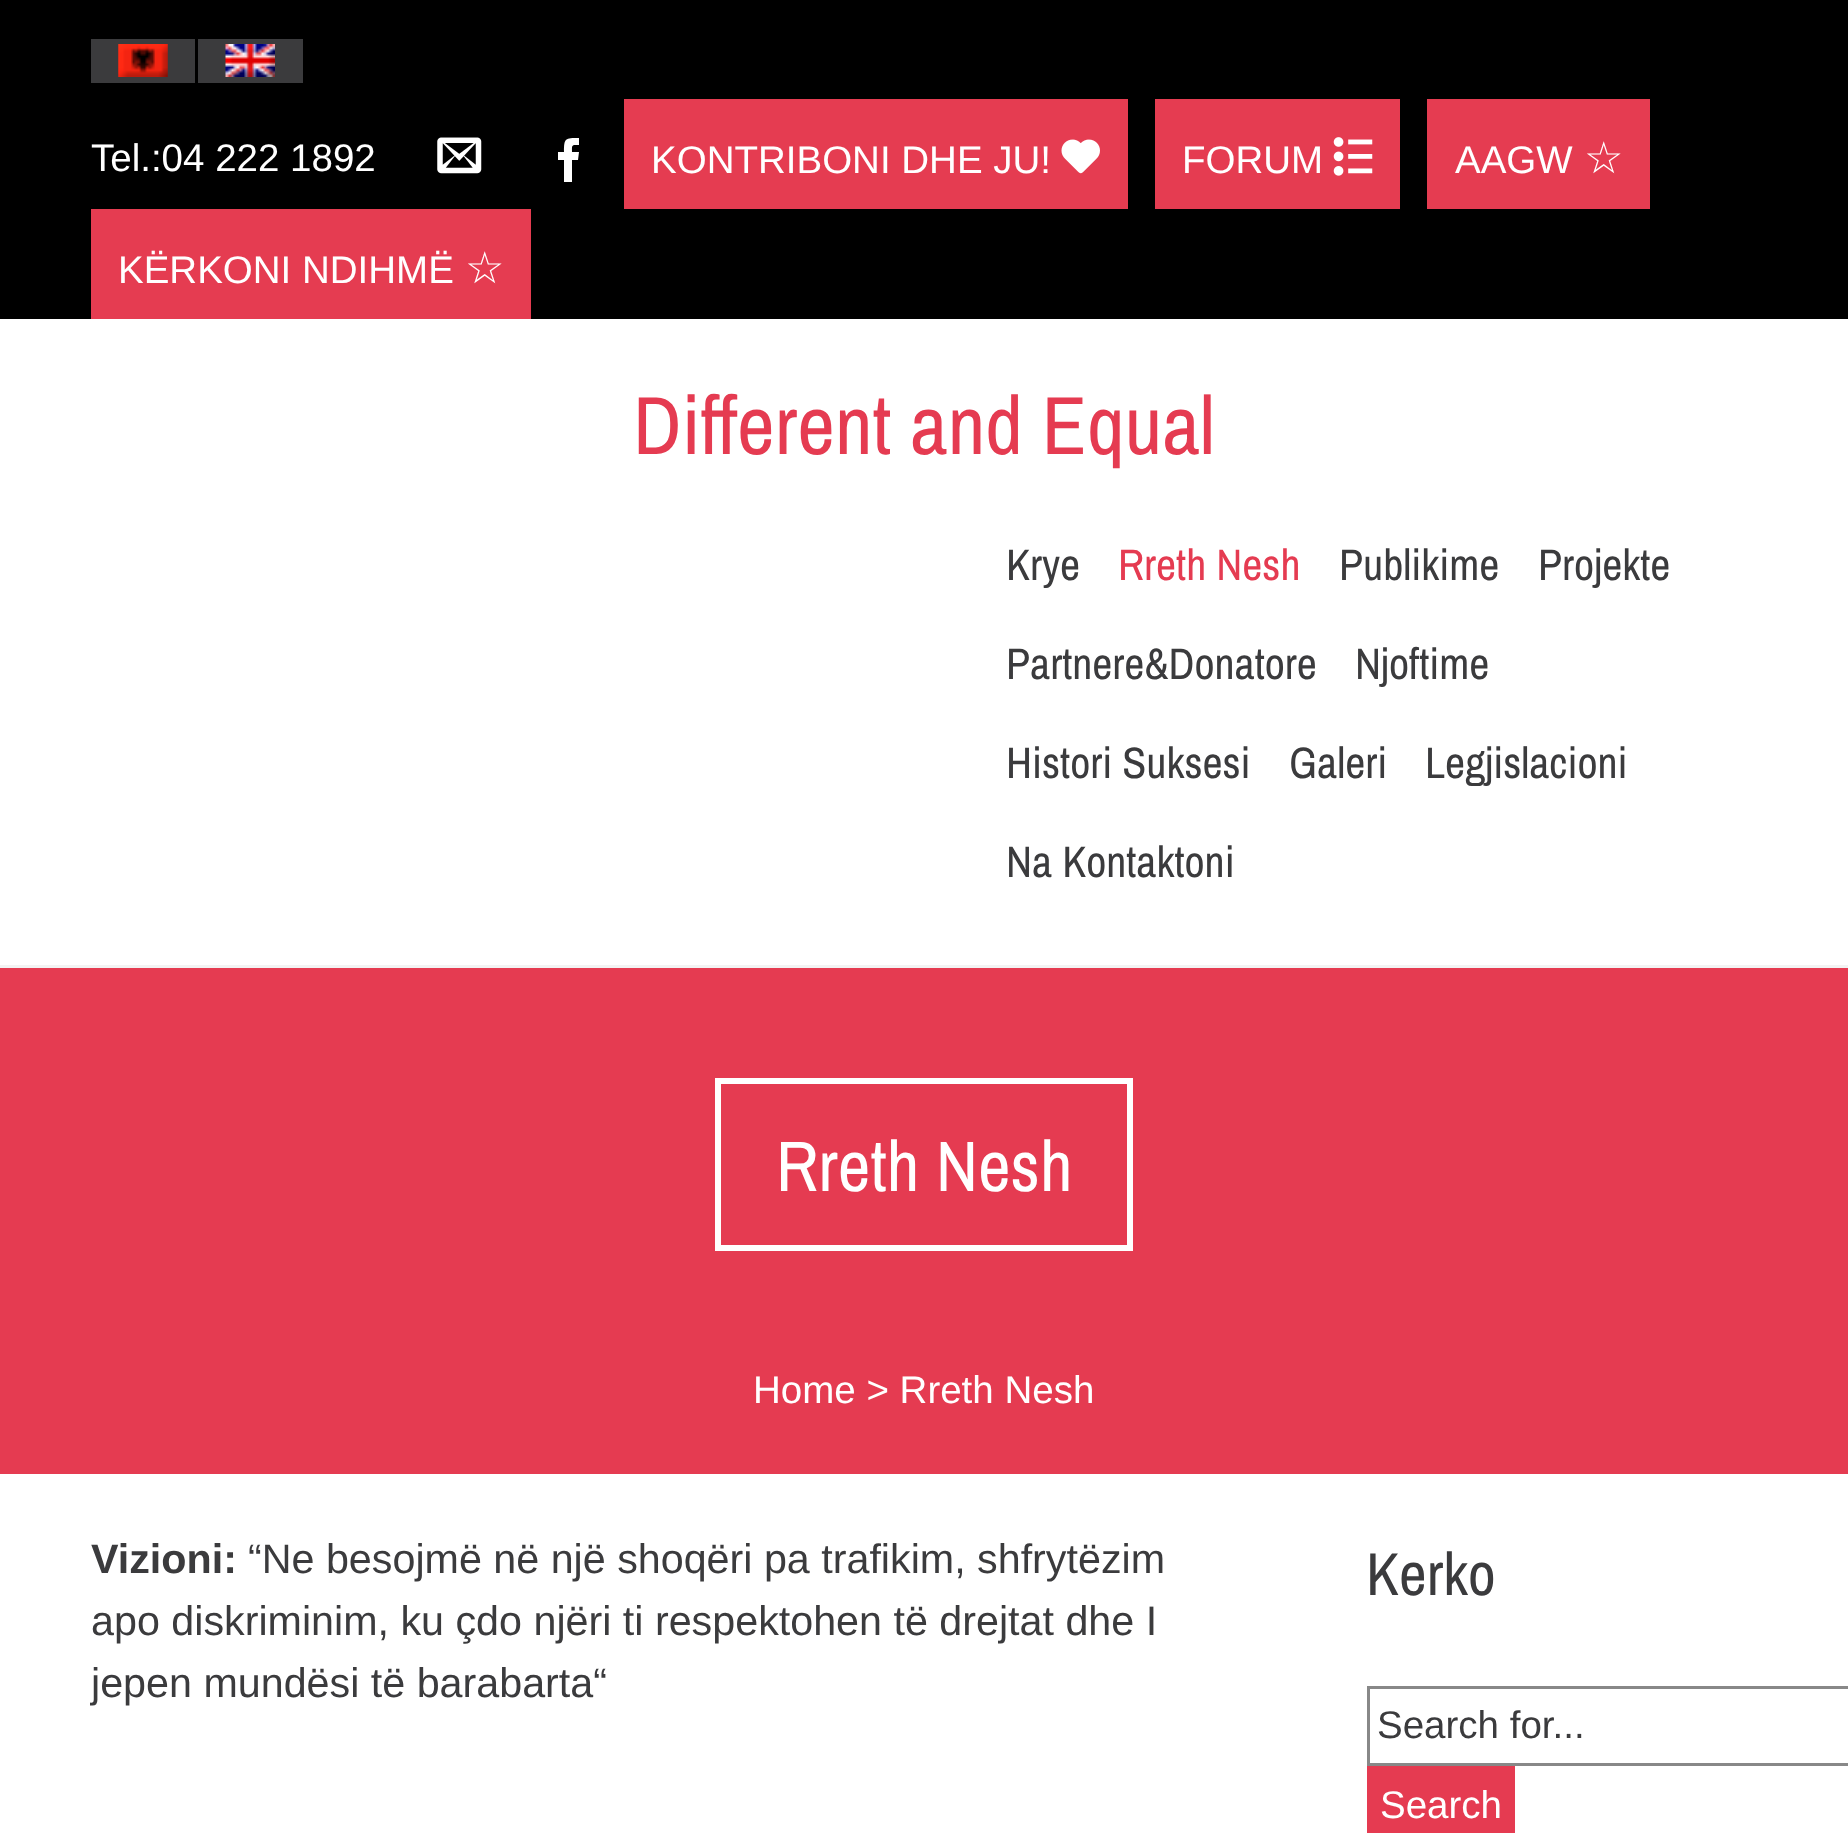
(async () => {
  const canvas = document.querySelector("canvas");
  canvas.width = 1848;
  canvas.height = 1833;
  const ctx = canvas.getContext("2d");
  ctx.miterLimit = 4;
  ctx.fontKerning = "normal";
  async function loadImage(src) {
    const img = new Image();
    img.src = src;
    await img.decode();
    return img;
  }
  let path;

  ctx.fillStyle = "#ffffff";
  ctx.fillRect(0, 0, 1848, 1833);
  ctx.fillStyle = "#000000";
  ctx.fillRect(0, 0, 1848, 319);
  ctx.fillStyle = "#3b3b3d";
  ctx.fillRect(91, 39, 104, 44);
  ctx.drawImage(await loadImage("img/1.png"), 118, 44, 50, 33);
  ctx.fillRect(198, 39, 105, 44);
  ctx.drawImage(await loadImage("img/2.png"), 225, 44, 50, 33);
  ctx.drawImage(await loadImage("img/3.png"), 437, 137, 45, 37);
  ctx.fillStyle = "#ffffff";
  path = new Path2D("M572 182H564V160H558V152H564C564 138 565 138 579 138V145C571 145 572 145 572 152H579L578 160H572Z");
  ctx.fill(path);
  ctx.fillStyle = "#e53c51";
  ctx.fillRect(624, 99, 504, 110);
  ctx.drawImage(await loadImage("img/4.png"), 1061, 139, 39, 35);
  ctx.fillRect(1155, 99, 245, 110);
  ctx.drawImage(await loadImage("img/5.png"), 1333, 137, 40, 39);
  for (const [x, y, w, h, color] of [
    [1427, 99, 223, 110, "#e53c51"],
    [91, 209, 440, 110, "#e53c51"],
    [0, 965, 1848, 3, "#f3f3f3"],
    [0, 968, 1848, 506, "#e53b51"],
  ]) {
    ctx.fillStyle = color;
    ctx.fillRect(x, y, w, h);
  }
  ctx.strokeStyle = "#ffffff";
  ctx.lineWidth = 6;
  ctx.strokeRect(718, 1081, 412, 167);
  ctx.strokeStyle = "#888888";
  ctx.lineWidth = 3;
  ctx.strokeRect(1368.5, 1687.5, 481, 77);
  ctx.fillRect(1367, 1766, 148, 67);
  ctx.font = "38.5px Arimo";
  ctx.fillStyle = "#ffffff";
  for (const [text, x, y] of [
    ["Tel.:04 222 1892", 91, 171],
    ["KONTRIBONI DHE JU!", 651, 173],
    ["FORUM", 1182, 173],
    ["AAGW", 1455, 173],
  ]) {
    ctx.fillText(text, x, y);
  }
  ctx.font = "44px DejaVu Sans";
  ctx.fillText("☆", 1584, 173);
  ctx.font = "38.5px Arimo";
  ctx.fillText("KËRKONI NDIHMË", 118, 283);
  ctx.font = "44px DejaVu Sans";
  ctx.fillText("☆", 465, 283);
  ctx.font = "82.5px Archivo Narrow";
  ctx.fillStyle = "#e53b51";
  ctx.fillText("Different and Equal", 633, 454);
  ctx.font = "44px Archivo Narrow";
  ctx.fillStyle = "#3b3b3d";
  ctx.fillText("Krye", 1006, 580);
  ctx.fillStyle = "#e53b51";
  ctx.fillText("Rreth Nesh", 1118, 580);
  ctx.fillStyle = "#3b3b3d";
  for (const [text, x, y] of [
    ["Publikime", 1339, 580],
    ["Projekte", 1538, 580],
    ["Partnere&Donatore", 1006, 679],
    ["Njoftime", 1355, 679],
    ["Histori Suksesi", 1006, 778],
    ["Galeri", 1289, 778],
    ["Legjislacioni", 1425, 778],
    ["Na Kontaktoni", 1006, 877],
  ]) {
    ctx.fillText(text, x, y);
  }
  ctx.font = "71.5px Archivo Narrow";
  ctx.fillStyle = "#ffffff";
  ctx.fillText("Rreth Nesh", 776, 1191);
  ctx.font = "38.5px Arimo";
  ctx.fillText("Home > Rreth Nesh", 753, 1403);
  ctx.font = "bold 41.25px Arimo";
  ctx.fillStyle = "#3b3b3d";
  ctx.fillText("Vizioni:", 91, 1573);
  ctx.font = "41.25px Arimo";
  for (const [text, x, y] of [
    ["“Ne besojmë në një shoqëri pa trafikim, shfrytëzim", 248, 1573],
    ["apo diskriminim, ku çdo njëri ti respektohen të drejtat dhe I", 91, 1635],
    ["jepen mundësi të barabarta“", 91, 1697],
  ]) {
    ctx.fillText(text, x, y);
  }
  ctx.font = "60.5px Archivo Narrow";
  ctx.fillText("Kerko", 1366, 1595);
  ctx.font = "38.5px Arimo";
  ctx.fillText("Search for...", 1377, 1738);
  ctx.fillStyle = "#ffffff";
  ctx.fillText("Search", 1380, 1818);
})();
